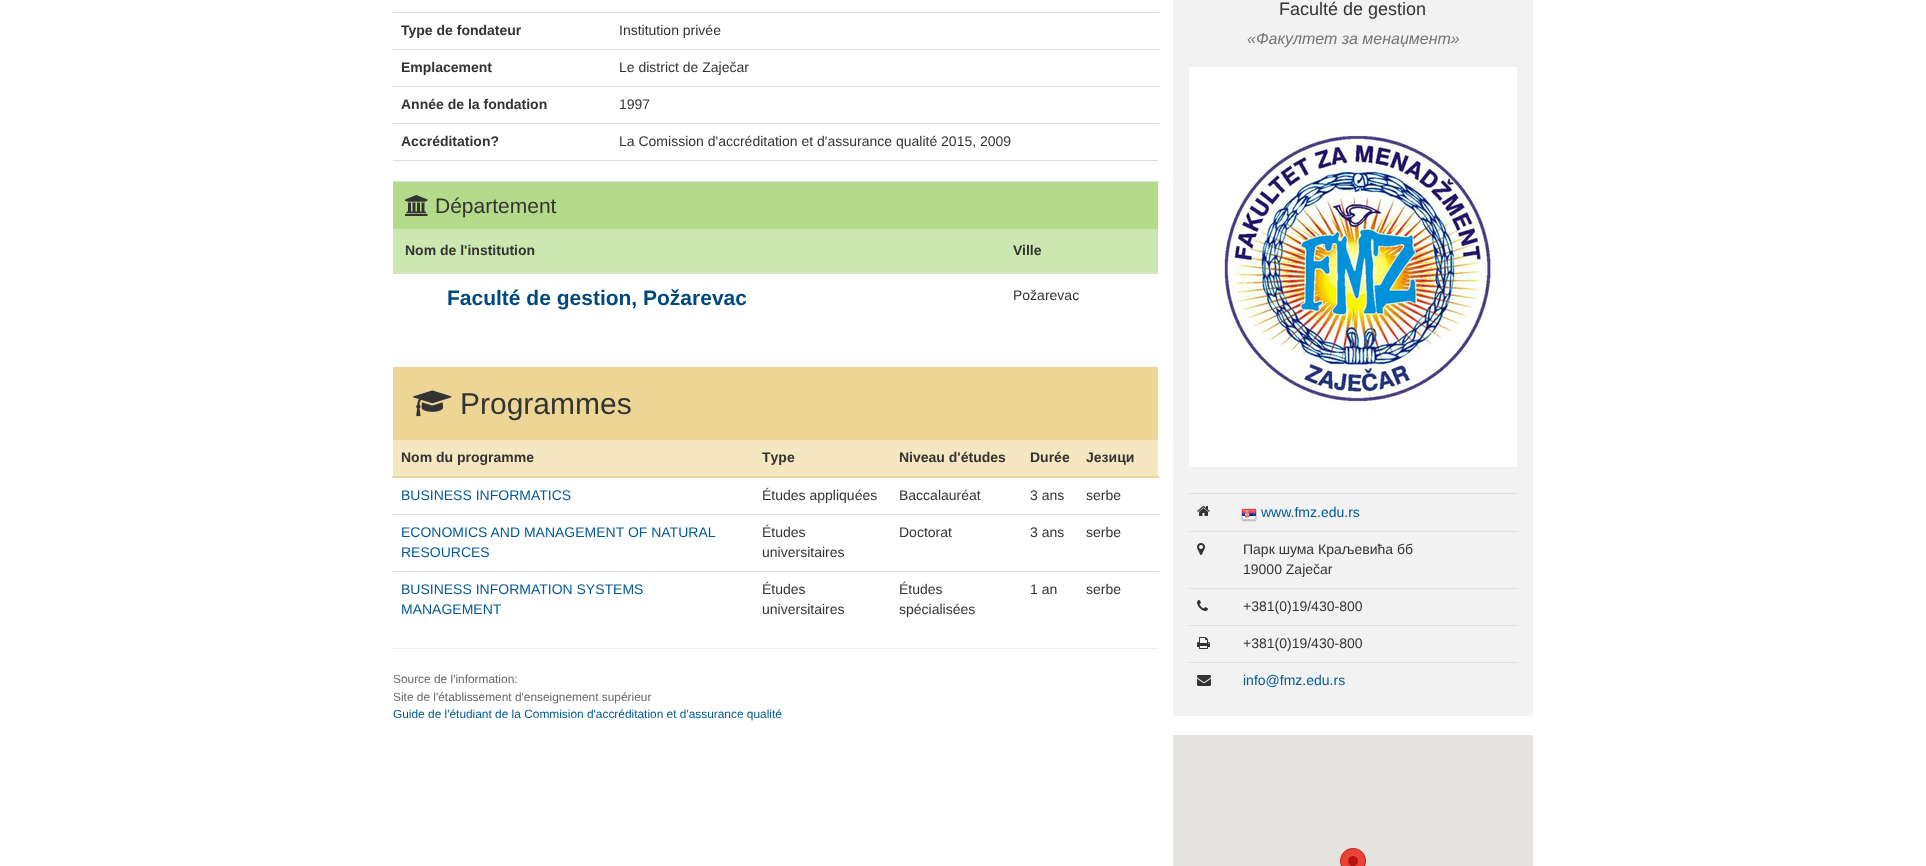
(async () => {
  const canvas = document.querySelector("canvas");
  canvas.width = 1926;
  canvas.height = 866;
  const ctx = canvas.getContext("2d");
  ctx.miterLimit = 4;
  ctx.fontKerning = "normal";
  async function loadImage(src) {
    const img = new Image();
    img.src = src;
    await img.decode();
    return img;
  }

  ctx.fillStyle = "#ffffff";
  ctx.fillRect(0, 0, 1926, 866);
  for (const [x, y, w, h, color] of [
    [393, 160, 765, 1, "#dddddd"],
    [393, 12, 766, 1, "#dddddd"],
    [393, 49, 766, 1, "#dddddd"],
    [393, 86, 766, 1, "#dddddd"],
    [393, 123, 766, 1, "#dddddd"],
    [393, 182, 765, 47, "#b4db89"],
    [393, 181, 766, 1, "#dddddd"],
  ]) {
    ctx.fillStyle = color;
    ctx.fillRect(x, y, w, h);
  }
  ctx.drawImage(await loadImage("img/1.png"), 405, 195, 23, 21);
  for (const [x, y, w, h, color] of [
    [393, 229, 765, 44, "#cde7b0"],
    [393, 273, 766, 1, "#dddddd"],
    [393, 367, 765, 73, "#edd695"],
  ]) {
    ctx.fillStyle = color;
    ctx.fillRect(x, y, w, h);
  }
  ctx.drawImage(await loadImage("img/2.png"), 413, 390, 39, 27);
  for (const [x, y, w, h, color] of [
    [393, 440, 765, 36, "#f4e7c1"],
    [392, 476, 767, 2, "#edd695"],
    [393, 514, 766, 1, "#dddddd"],
    [393, 571, 766, 1, "#dddddd"],
    [393, 648, 765, 1, "#eeeeee"],
  ]) {
    ctx.fillStyle = color;
    ctx.fillRect(x, y, w, h);
  }
  ctx.fillStyle = "rgba(0, 0, 0, 0.05)";
  ctx.filter = "blur(0.5px)";
  ctx.beginPath();
  ctx.rect(1173, -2, 360, 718);
  ctx.fill();
  ctx.filter = "none";
  ctx.fillStyle = "#ffffff";
  ctx.fillRect(1189, 67, 328, 400);
  ctx.drawImage(await loadImage("img/3.png"), 1222, 135, 269, 268);
  ctx.drawImage(await loadImage("img/4.png"), 1197, 506, 13, 10);
  ctx.fillStyle = "#dddddd";
  ctx.fillRect(1189, 493, 328, 1);
  ctx.drawImage(await loadImage("img/5.png"), 1241, 508, 16, 14);
  ctx.drawImage(await loadImage("img/6.png"), 1197, 543, 8, 12);
  ctx.fillRect(1189, 531, 328, 1);
  ctx.drawImage(await loadImage("img/7.png"), 1197, 600, 11, 11);
  ctx.fillRect(1189, 588, 328, 1);
  ctx.drawImage(await loadImage("img/8.png"), 1197, 637, 13, 12);
  ctx.fillRect(1189, 625, 328, 1);
  ctx.drawImage(await loadImage("img/9.png"), 1197, 675, 14, 11);
  ctx.fillRect(1189, 662, 328, 1);
  ctx.fillStyle = "#e5e3df";
  ctx.fillRect(1173, 735, 360, 131);
  ctx.drawImage(await loadImage("img/10.png"), 1340, 848, 26, 18);
  ctx.font = "bold 14px Liberation Sans";
  ctx.fillStyle = "#333333";
  ctx.fillText("Type de fondateur", 401, 35);
  ctx.font = "14px Liberation Sans";
  ctx.fillText("Institution privée", 619, 35);
  ctx.font = "bold 14px Liberation Sans";
  ctx.fillText("Emplacement", 401, 72);
  ctx.font = "14px Liberation Sans";
  ctx.fillText("Le district de Zaječar", 619, 72);
  ctx.font = "bold 14px Liberation Sans";
  ctx.fillText("Année de la fondation", 401, 109);
  ctx.font = "14px Liberation Sans";
  ctx.fillText("1997", 619, 109);
  ctx.font = "bold 14px Liberation Sans";
  ctx.fillText("Accréditation?", 401, 146);
  ctx.font = "14px Liberation Sans";
  ctx.fillText("La Comission d'accréditation et d'assurance qualité 2015, 2009", 619, 146);
  ctx.font = "21px Liberation Sans";
  ctx.fillText("Département", 435, 213);
  ctx.font = "bold 14px Liberation Sans";
  ctx.fillText("Nom de l'institution", 405, 255);
  ctx.fillText("Ville", 1013, 255);
  ctx.font = "bold 21px Liberation Sans";
  ctx.fillStyle = "#00497c";
  ctx.fillText("Faculté de gestion, Požarevac", 447, 305);
  ctx.font = "14px Liberation Sans";
  ctx.fillStyle = "#333333";
  ctx.fillText("Požarevac", 1013, 300);
  ctx.font = "30px Liberation Sans";
  ctx.fillText("Programmes", 460, 414);
  ctx.font = "bold 14px Liberation Sans";
  for (const [text, x, y] of [
    ["Nom du programme", 401, 462],
    ["Тype", 762, 462],
    ["Niveau d'études", 899, 462],
    ["Durée", 1030, 462],
    ["Језици", 1086, 462],
  ]) {
    ctx.fillText(text, x, y);
  }
  ctx.font = "14px Liberation Sans";
  ctx.fillStyle = "#005995";
  ctx.fillText("BUSINESS INFORMATICS", 401, 500);
  ctx.fillStyle = "#333333";
  for (const [text, x, y] of [
    ["Études appliquées", 762, 500],
    ["Baccalauréat", 899, 500],
    ["3 ans", 1030, 500],
    ["serbe", 1086, 500],
  ]) {
    ctx.fillText(text, x, y);
  }
  ctx.fillStyle = "#005995";
  ctx.fillText("ECONOMICS AND MANAGEMENT OF NATURAL", 401, 537);
  ctx.fillText("RESOURCES", 401, 557);
  ctx.fillStyle = "#333333";
  for (const [text, x, y] of [
    ["Études", 762, 537],
    ["universitaires", 762, 557],
    ["Doctorat", 899, 537],
    ["3 ans", 1030, 537],
    ["serbe", 1086, 537],
  ]) {
    ctx.fillText(text, x, y);
  }
  ctx.fillStyle = "#005995";
  ctx.fillText("BUSINESS INFORMATION SYSTEMS", 401, 594);
  ctx.fillText("MANAGEMENT", 401, 614);
  ctx.fillStyle = "#333333";
  for (const [text, x, y] of [
    ["Études", 762, 594],
    ["universitaires", 762, 614],
    ["Études", 899, 594],
    ["spécialisées", 899, 614],
    ["1 an", 1030, 594],
    ["serbe", 1086, 594],
  ]) {
    ctx.fillText(text, x, y);
  }
  ctx.font = "11.9px Liberation Sans";
  ctx.fillStyle = "#666666";
  ctx.fillText("Source de l'information:", 393, 683);
  ctx.fillText("Site de l'établissement d'enseignement supérieur", 393, 701);
  ctx.fillStyle = "#005995";
  ctx.fillText("Guide de l'étudiant de la Commision d'accréditation et d'assurance qualité", 393, 718);
  ctx.font = "18px Liberation Sans";
  ctx.fillStyle = "#333333";
  ctx.fillText("Faculté de gestion", 1279, 15);
  ctx.font = "italic 16px Liberation Sans";
  ctx.fillStyle = "#747474";
  ctx.fillText("«Факултет за менаџмент»", 1247, 44);
  ctx.font = "14px Liberation Sans";
  ctx.fillStyle = "#005995";
  ctx.fillText("www.fmz.edu.rs", 1261, 517);
  ctx.fillStyle = "#333333";
  for (const [text, x, y] of [
    ["Парк шума Краљевића бб", 1243, 554],
    ["19000 Zaječar", 1243, 574],
    ["+381(0)19/430-800", 1243, 611],
    ["+381(0)19/430-800", 1243, 648],
  ]) {
    ctx.fillText(text, x, y);
  }
  ctx.fillStyle = "#005995";
  ctx.fillText("info@fmz.edu.rs", 1243, 685);
})();
